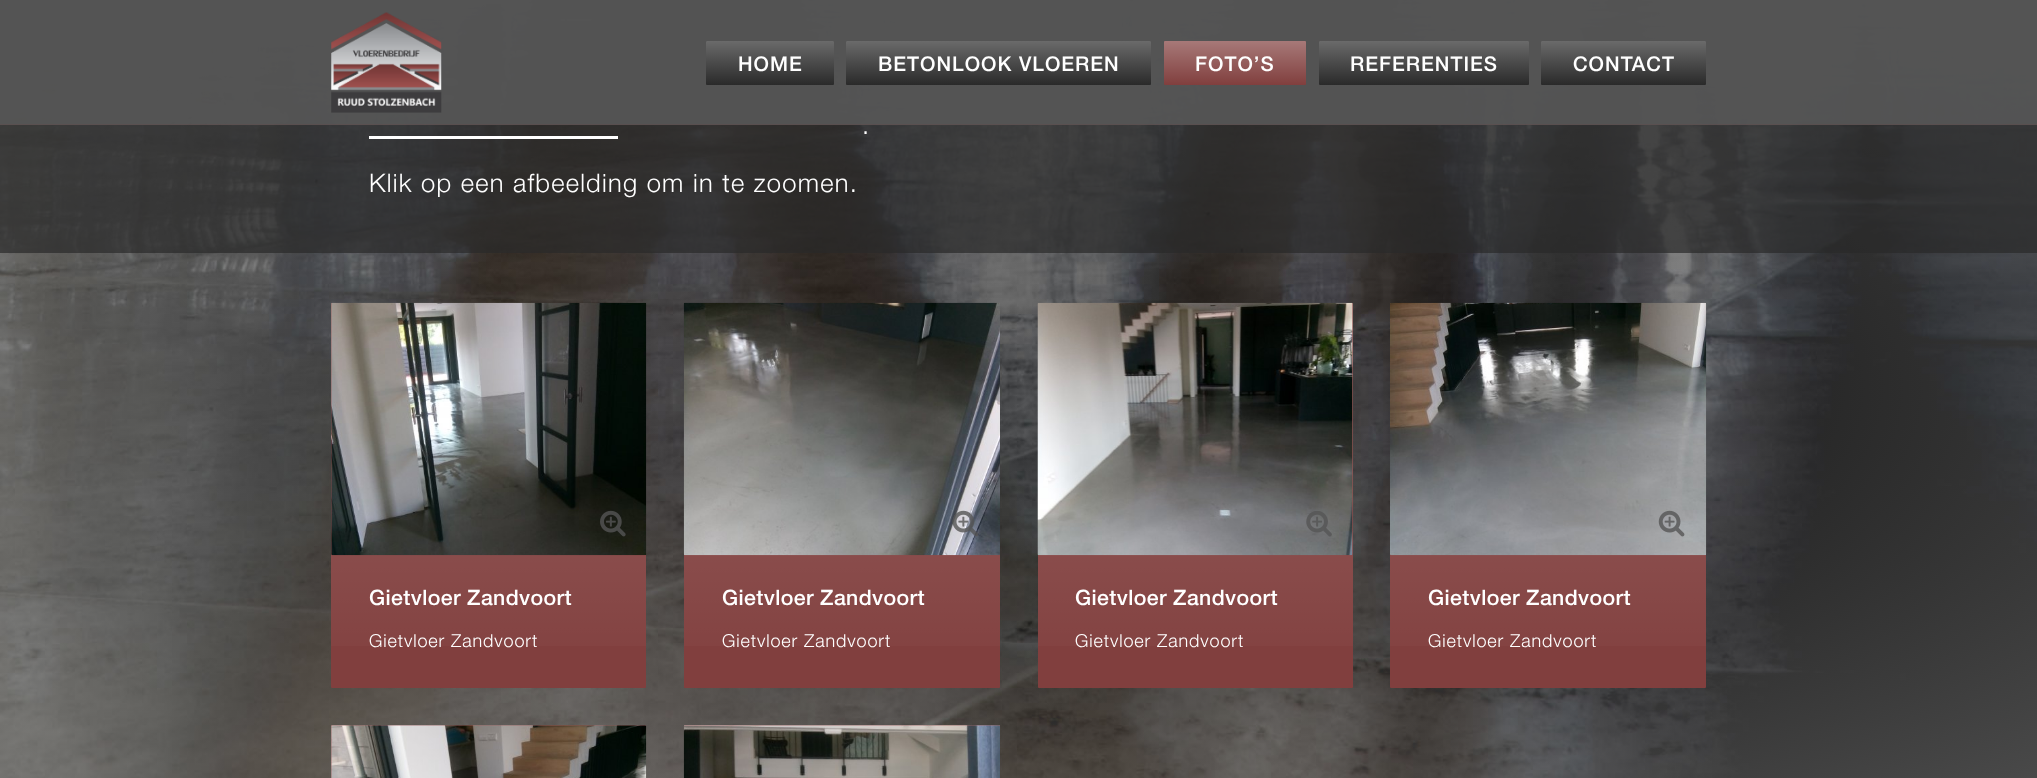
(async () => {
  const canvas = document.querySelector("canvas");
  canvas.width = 2037;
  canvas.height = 778;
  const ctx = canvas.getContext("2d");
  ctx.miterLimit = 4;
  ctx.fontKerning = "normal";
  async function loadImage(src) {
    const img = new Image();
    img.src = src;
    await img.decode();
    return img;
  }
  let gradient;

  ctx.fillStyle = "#ffffff";
  ctx.fillRect(0, 0, 2037, 778);
  ctx.drawImage(await loadImage("img/1.png"), 0, 0, 2037, 778);
  for (const [x, y, w, h, color] of [
    [0, 0, 2037, 253, "rgba(42, 42, 42, 0.7)"],
    [0, 0, 2037, 125, "rgba(85, 85, 85, 0.95)"],
    [0, 124, 2037, 1, "rgba(129, 63, 62, 0.15)"],
  ]) {
    ctx.fillStyle = color;
    ctx.fillRect(x, y, w, h);
  }
  ctx.drawImage(await loadImage("img/2.png"), 331, 12, 111, 101);
  ctx.fillStyle = "#2a2a2a";
  ctx.beginPath();
  ctx.roundRect(706, 41, 128, 44, 1);
  ctx.fill();
  gradient = ctx.createLinearGradient(770, 41, 770, 85);
  gradient.addColorStop(0, "rgba(255, 255, 255, 0.3)");
  gradient.addColorStop(1, "rgba(255, 255, 255, 0)");
  ctx.fillStyle = gradient;
  ctx.beginPath();
  ctx.roundRect(706, 41, 128, 44, 1);
  ctx.fill();
  ctx.fillStyle = "#2a2a2a";
  ctx.beginPath();
  ctx.roundRect(846, 41, 305, 44, 1);
  ctx.fill();
  gradient = ctx.createLinearGradient(999, 41, 999, 85);
  gradient.addColorStop(0, "rgba(255, 255, 255, 0.3)");
  gradient.addColorStop(1, "rgba(255, 255, 255, 0)");
  ctx.fillStyle = gradient;
  ctx.beginPath();
  ctx.roundRect(846, 41, 305, 44, 1);
  ctx.fill();
  ctx.fillStyle = "#813f3e";
  ctx.beginPath();
  ctx.roundRect(1164, 41, 142, 44, 1);
  ctx.fill();
  gradient = ctx.createLinearGradient(1235, 41, 1235, 85);
  gradient.addColorStop(0, "rgba(255, 255, 255, 0.3)");
  gradient.addColorStop(1, "rgba(255, 255, 255, 0)");
  ctx.fillStyle = gradient;
  ctx.beginPath();
  ctx.roundRect(1164, 41, 142, 44, 1);
  ctx.fill();
  ctx.fillStyle = "#2a2a2a";
  ctx.beginPath();
  ctx.roundRect(1319, 41, 210, 44, 1);
  ctx.fill();
  gradient = ctx.createLinearGradient(1424, 41, 1424, 85);
  gradient.addColorStop(0, "rgba(255, 255, 255, 0.3)");
  gradient.addColorStop(1, "rgba(255, 255, 255, 0)");
  ctx.fillStyle = gradient;
  ctx.beginPath();
  ctx.roundRect(1319, 41, 210, 44, 1);
  ctx.fill();
  ctx.fillStyle = "#2a2a2a";
  ctx.beginPath();
  ctx.roundRect(1541, 41, 165, 44, 1);
  ctx.fill();
  gradient = ctx.createLinearGradient(1624, 41, 1624, 85);
  gradient.addColorStop(0, "rgba(255, 255, 255, 0.3)");
  gradient.addColorStop(1, "rgba(255, 255, 255, 0)");
  ctx.fillStyle = gradient;
  ctx.beginPath();
  ctx.roundRect(1541, 41, 165, 44, 1);
  ctx.fill();
  ctx.fillStyle = "#ffffff";
  ctx.fillRect(369, 136, 249, 3);
  ctx.fillStyle = "#813f3e";
  ctx.beginPath();
  ctx.roundRect(331, 303, 315, 385, 1);
  ctx.fill();
  gradient = ctx.createLinearGradient(489, 302, 489, 688);
  gradient.addColorStop(0, "rgba(255, 255, 255, 0.2)");
  gradient.addColorStop(1, "rgba(255, 255, 255, 0)");
  ctx.fillStyle = gradient;
  ctx.fillRect(331, 303, 315, 343);
  ctx.drawImage(await loadImage("img/3.png"), 331, 302, 316, 254);
  ctx.drawImage(await loadImage("img/4.png"), 600, 510, 26, 27);
  ctx.fillStyle = "#813f3e";
  ctx.beginPath();
  ctx.roundRect(684, 303, 316, 385, 1);
  ctx.fill();
  gradient = ctx.createLinearGradient(842, 302, 842, 688);
  gradient.addColorStop(0, "rgba(255, 255, 255, 0.2)");
  gradient.addColorStop(1, "rgba(255, 255, 255, 0)");
  ctx.fillStyle = gradient;
  ctx.fillRect(684, 303, 316, 343);
  ctx.drawImage(await loadImage("img/5.png"), 683, 302, 317, 254);
  ctx.drawImage(await loadImage("img/6.png"), 952, 510, 26, 27);
  ctx.fillStyle = "#813f3e";
  ctx.beginPath();
  ctx.roundRect(1038, 303, 315, 385, 1);
  ctx.fill();
  gradient = ctx.createLinearGradient(1195, 302, 1195, 688);
  gradient.addColorStop(0, "rgba(255, 255, 255, 0.2)");
  gradient.addColorStop(1, "rgba(255, 255, 255, 0)");
  ctx.fillStyle = gradient;
  ctx.fillRect(1038, 303, 315, 343);
  ctx.drawImage(await loadImage("img/7.png"), 1037, 302, 316, 254);
  ctx.drawImage(await loadImage("img/8.png"), 1306, 511, 26, 26);
  ctx.fillStyle = "#813f3e";
  ctx.beginPath();
  ctx.roundRect(1390, 303, 316, 385, 1);
  ctx.fill();
  gradient = ctx.createLinearGradient(1548, 302, 1548, 688);
  gradient.addColorStop(0, "rgba(255, 255, 255, 0.2)");
  gradient.addColorStop(1, "rgba(255, 255, 255, 0)");
  ctx.fillStyle = gradient;
  ctx.fillRect(1390, 303, 316, 343);
  ctx.drawImage(await loadImage("img/9.png"), 1390, 302, 317, 254);
  ctx.drawImage(await loadImage("img/10.png"), 1658, 510, 27, 27);
  ctx.fillStyle = "#813f3e";
  ctx.beginPath();
  ctx.roundRect(331, 725, 315, 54, 1);
  ctx.fill();
  gradient = ctx.createLinearGradient(489, 725, 489, 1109);
  gradient.addColorStop(0, "rgba(255, 255, 255, 0.2)");
  gradient.addColorStop(1, "rgba(255, 255, 255, 0)");
  ctx.fillStyle = gradient;
  ctx.fillRect(331, 725, 315, 53);
  ctx.drawImage(await loadImage("img/11.png"), 331, 725, 316, 53);
  ctx.fillStyle = "#813f3e";
  ctx.beginPath();
  ctx.roundRect(684, 725, 316, 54, 1);
  ctx.fill();
  gradient = ctx.createLinearGradient(842, 725, 842, 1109);
  gradient.addColorStop(0, "rgba(255, 255, 255, 0.2)");
  gradient.addColorStop(1, "rgba(255, 255, 255, 0)");
  ctx.fillStyle = gradient;
  ctx.fillRect(684, 725, 316, 2);
  ctx.drawImage(await loadImage("img/12.png"), 683, 725, 317, 53);
  ctx.letterSpacing = "1px";
  ctx.font = "500 20.25px Helvetica Neue";
  ctx.fillStyle = "#ffffff";
  for (const [text, x, y] of [
    ["HOME", 738, 71],
    ["BETONLOOK VLOEREN", 878, 71],
    ["FOTO’S", 1195, 71],
    ["REFERENTIES", 1350, 71],
    ["CONTACT", 1573, 71],
  ]) {
    ctx.fillText(text, x, y);
  }
  ctx.letterSpacing = "1.25px";
  ctx.font = "300 25.5px Helvetica Neue";
  ctx.fillText(".", 862, 134);
  ctx.fillText("Klik op een afbeelding om in te zoomen.", 369, 192);
  ctx.letterSpacing = "0.4px";
  ctx.font = "500 21.25px Helvetica Neue";
  ctx.fillText("Gietvloer Zandvoort", 369, 605);
  ctx.letterSpacing = "0.9px";
  ctx.font = "300 18px Helvetica Neue";
  ctx.fillText("Gietvloer Zandvoort", 369, 647);
  ctx.letterSpacing = "0.4px";
  ctx.font = "500 21.25px Helvetica Neue";
  ctx.fillText("Gietvloer Zandvoort", 722, 605);
  ctx.letterSpacing = "0.9px";
  ctx.font = "300 18px Helvetica Neue";
  ctx.fillText("Gietvloer Zandvoort", 722, 647);
  ctx.letterSpacing = "0.4px";
  ctx.font = "500 21.25px Helvetica Neue";
  ctx.fillText("Gietvloer Zandvoort", 1075, 605);
  ctx.letterSpacing = "0.9px";
  ctx.font = "300 18px Helvetica Neue";
  ctx.fillText("Gietvloer Zandvoort", 1075, 647);
  ctx.letterSpacing = "0.4px";
  ctx.font = "500 21.25px Helvetica Neue";
  ctx.fillText("Gietvloer Zandvoort", 1428, 605);
  ctx.letterSpacing = "0.9px";
  ctx.font = "300 18px Helvetica Neue";
  ctx.fillText("Gietvloer Zandvoort", 1428, 647);
})();
